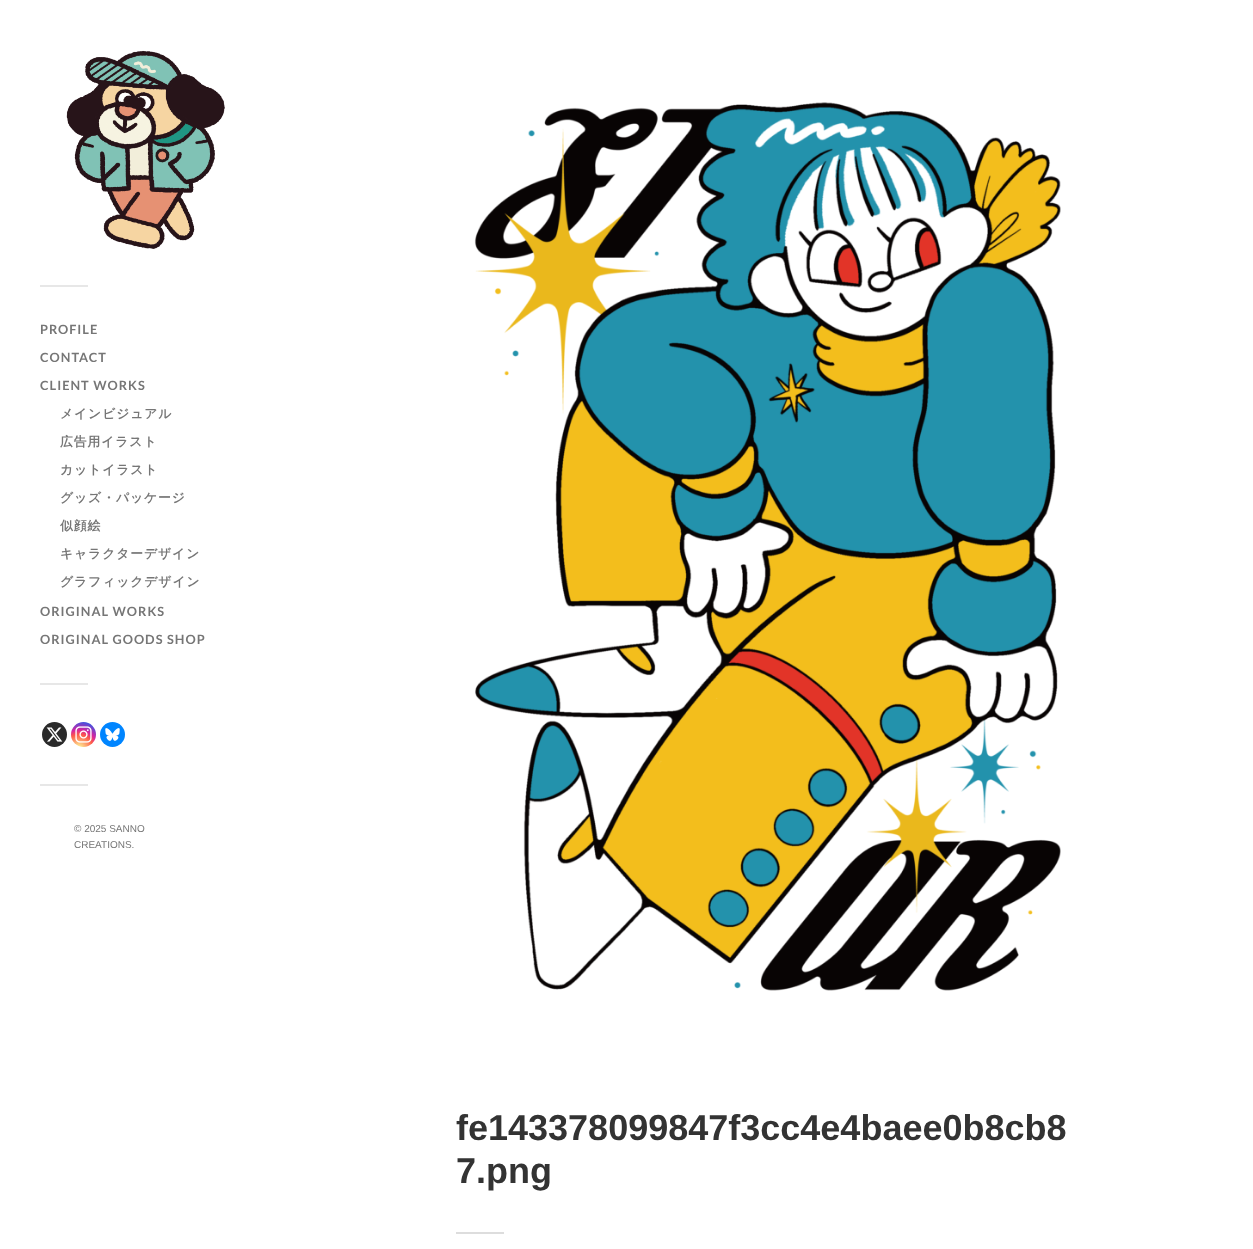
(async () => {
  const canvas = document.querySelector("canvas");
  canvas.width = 1253;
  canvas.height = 1249;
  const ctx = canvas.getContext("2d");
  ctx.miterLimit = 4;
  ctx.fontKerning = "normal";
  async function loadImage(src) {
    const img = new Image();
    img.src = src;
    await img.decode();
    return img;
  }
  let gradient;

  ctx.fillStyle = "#ffffff";
  ctx.fillRect(0, 0, 1253, 1249);
  ctx.drawImage(await loadImage("img/1.png"), 66, 50, 159, 199);
  ctx.fillStyle = "#e7e7e7";
  ctx.fillRect(40, 285, 48, 2);
  ctx.fillRect(40, 683, 48, 2);
  ctx.fillStyle = "#2a2a2a";
  ctx.beginPath();
  ctx.arc(54.5, 734.5, 12.5, 0, Math.PI * 2);
  ctx.fill();
  ctx.drawImage(await loadImage("img/2.png"), 46, 727, 17, 15);
  gradient = ctx.createRadialGradient(79, 749, 0, 79, 749, 32);
  gradient.addColorStop(0, "#fdf497");
  gradient.addColorStop(0.05, "#fdf497");
  gradient.addColorStop(0.45, "#fd5949");
  gradient.addColorStop(0.6, "#d6249f");
  gradient.addColorStop(0.9, "#285aeb");
  ctx.fillStyle = gradient;
  ctx.beginPath();
  ctx.arc(83.5, 734.5, 12.5, 0, Math.PI * 2);
  ctx.fill();
  ctx.drawImage(await loadImage("img/3.png"), 75, 726, 17, 17);
  ctx.fillStyle = "#0085ff";
  ctx.beginPath();
  ctx.arc(112.5, 734.5, 12.5, 0, Math.PI * 2);
  ctx.fill();
  ctx.drawImage(await loadImage("img/4.png"), 105, 728, 15, 13);
  ctx.fillStyle = "#e7e7e7";
  ctx.fillRect(40, 784, 48, 2);
  ctx.drawImage(await loadImage("img/5.png"), 474, 102, 587, 889);
  ctx.fillStyle = "#dddddd";
  ctx.fillRect(456, 1232, 48, 2);
  ctx.letterSpacing = "1px";
  ctx.font = "bold 12.75px Lato";
  ctx.fillStyle = "#767676";
  for (const [text, x, y] of [
    ["PROFILE", 40, 334],
    ["CONTACT", 40, 362],
    ["CLIENT WORKS", 40, 390],
  ]) {
    ctx.fillText(text, x, y);
  }
  ctx.font = "bold 12.75px WenQuanYi Zen Hei";
  for (const [text, x, y] of [
    ["メインビジュアル", 60, 418],
    ["広告用イラスト", 60, 446],
    ["カットイラスト", 60, 474],
    ["グッズ・パッケージ", 60, 502],
    ["似顔絵", 60, 530],
    ["キャラクターデザイン", 60, 558],
    ["グラフィックデザイン", 60, 586],
  ]) {
    ctx.fillText(text, x, y);
  }
  ctx.font = "bold 12.75px Lato";
  ctx.fillText("ORIGINAL WORKS", 40, 616);
  ctx.fillText("ORIGINAL GOODS SHOP", 40, 644);
  ctx.letterSpacing = "0px";
  ctx.font = "10px Liberation Sans";
  ctx.fillText("© 2025 SANNO", 74, 832);
  ctx.fillText("CREATIONS.", 74, 848);
  ctx.font = "bold 36px Liberation Sans";
  ctx.fillStyle = "#333333";
  ctx.fillText("fe143378099847f3cc4e4baee0b8cb8", 456, 1140);
  ctx.fillText("7.png", 456, 1183);
})();
